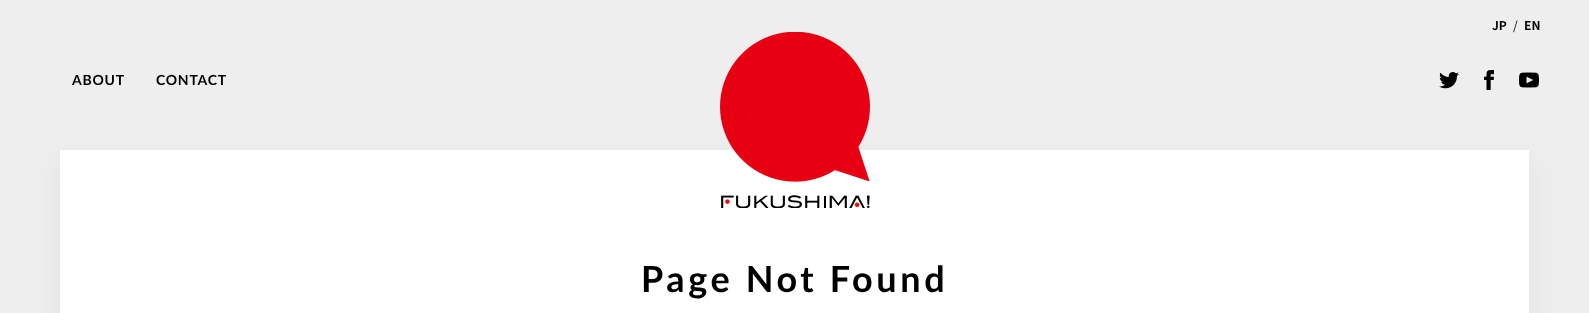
(async () => {
  const canvas = document.querySelector("canvas");
  canvas.width = 1589;
  canvas.height = 313;
  const ctx = canvas.getContext("2d");
  ctx.miterLimit = 4;
  ctx.fontKerning = "normal";
  async function loadImage(src) {
    const img = new Image();
    img.src = src;
    await img.decode();
    return img;
  }

  ctx.fillStyle = "#eeeeee";
  ctx.fillRect(0, 0, 1589, 313);
  ctx.fillStyle = "rgba(0, 0, 0, 0.05)";
  ctx.filter = "blur(15px)";
  ctx.beginPath();
  ctx.rect(60, 160, 1469, 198);
  ctx.fill();
  ctx.filter = "none";
  ctx.fillStyle = "#ffffff";
  ctx.fillRect(60, 150, 1469, 163);
  ctx.drawImage(await loadImage("img/1.png"), 720, 32, 150, 176);
  ctx.drawImage(await loadImage("img/2.png"), 1439, 72, 20, 17);
  ctx.drawImage(await loadImage("img/3.png"), 1484, 70, 10, 20);
  ctx.drawImage(await loadImage("img/4.png"), 1519, 72, 20, 16);
  ctx.font = "bold 12px Noto Sans JP";
  ctx.fillStyle = "#000000";
  ctx.fillText("JP", 1492, 30);
  ctx.font = "12px Noto Sans JP";
  ctx.fillText("/", 1513, 30);
  ctx.font = "bold 12px Noto Sans JP";
  ctx.fillText("EN", 1524, 30);
  ctx.letterSpacing = "0.75px";
  ctx.font = "bold 14px Lato";
  ctx.fillText("ABOUT", 72, 85);
  ctx.fillText("CONTACT", 156, 85);
  ctx.letterSpacing = "3.6px";
  ctx.font = "bold 36px Lato";
  ctx.fillText("Page Not Found", 641, 292);
})();
